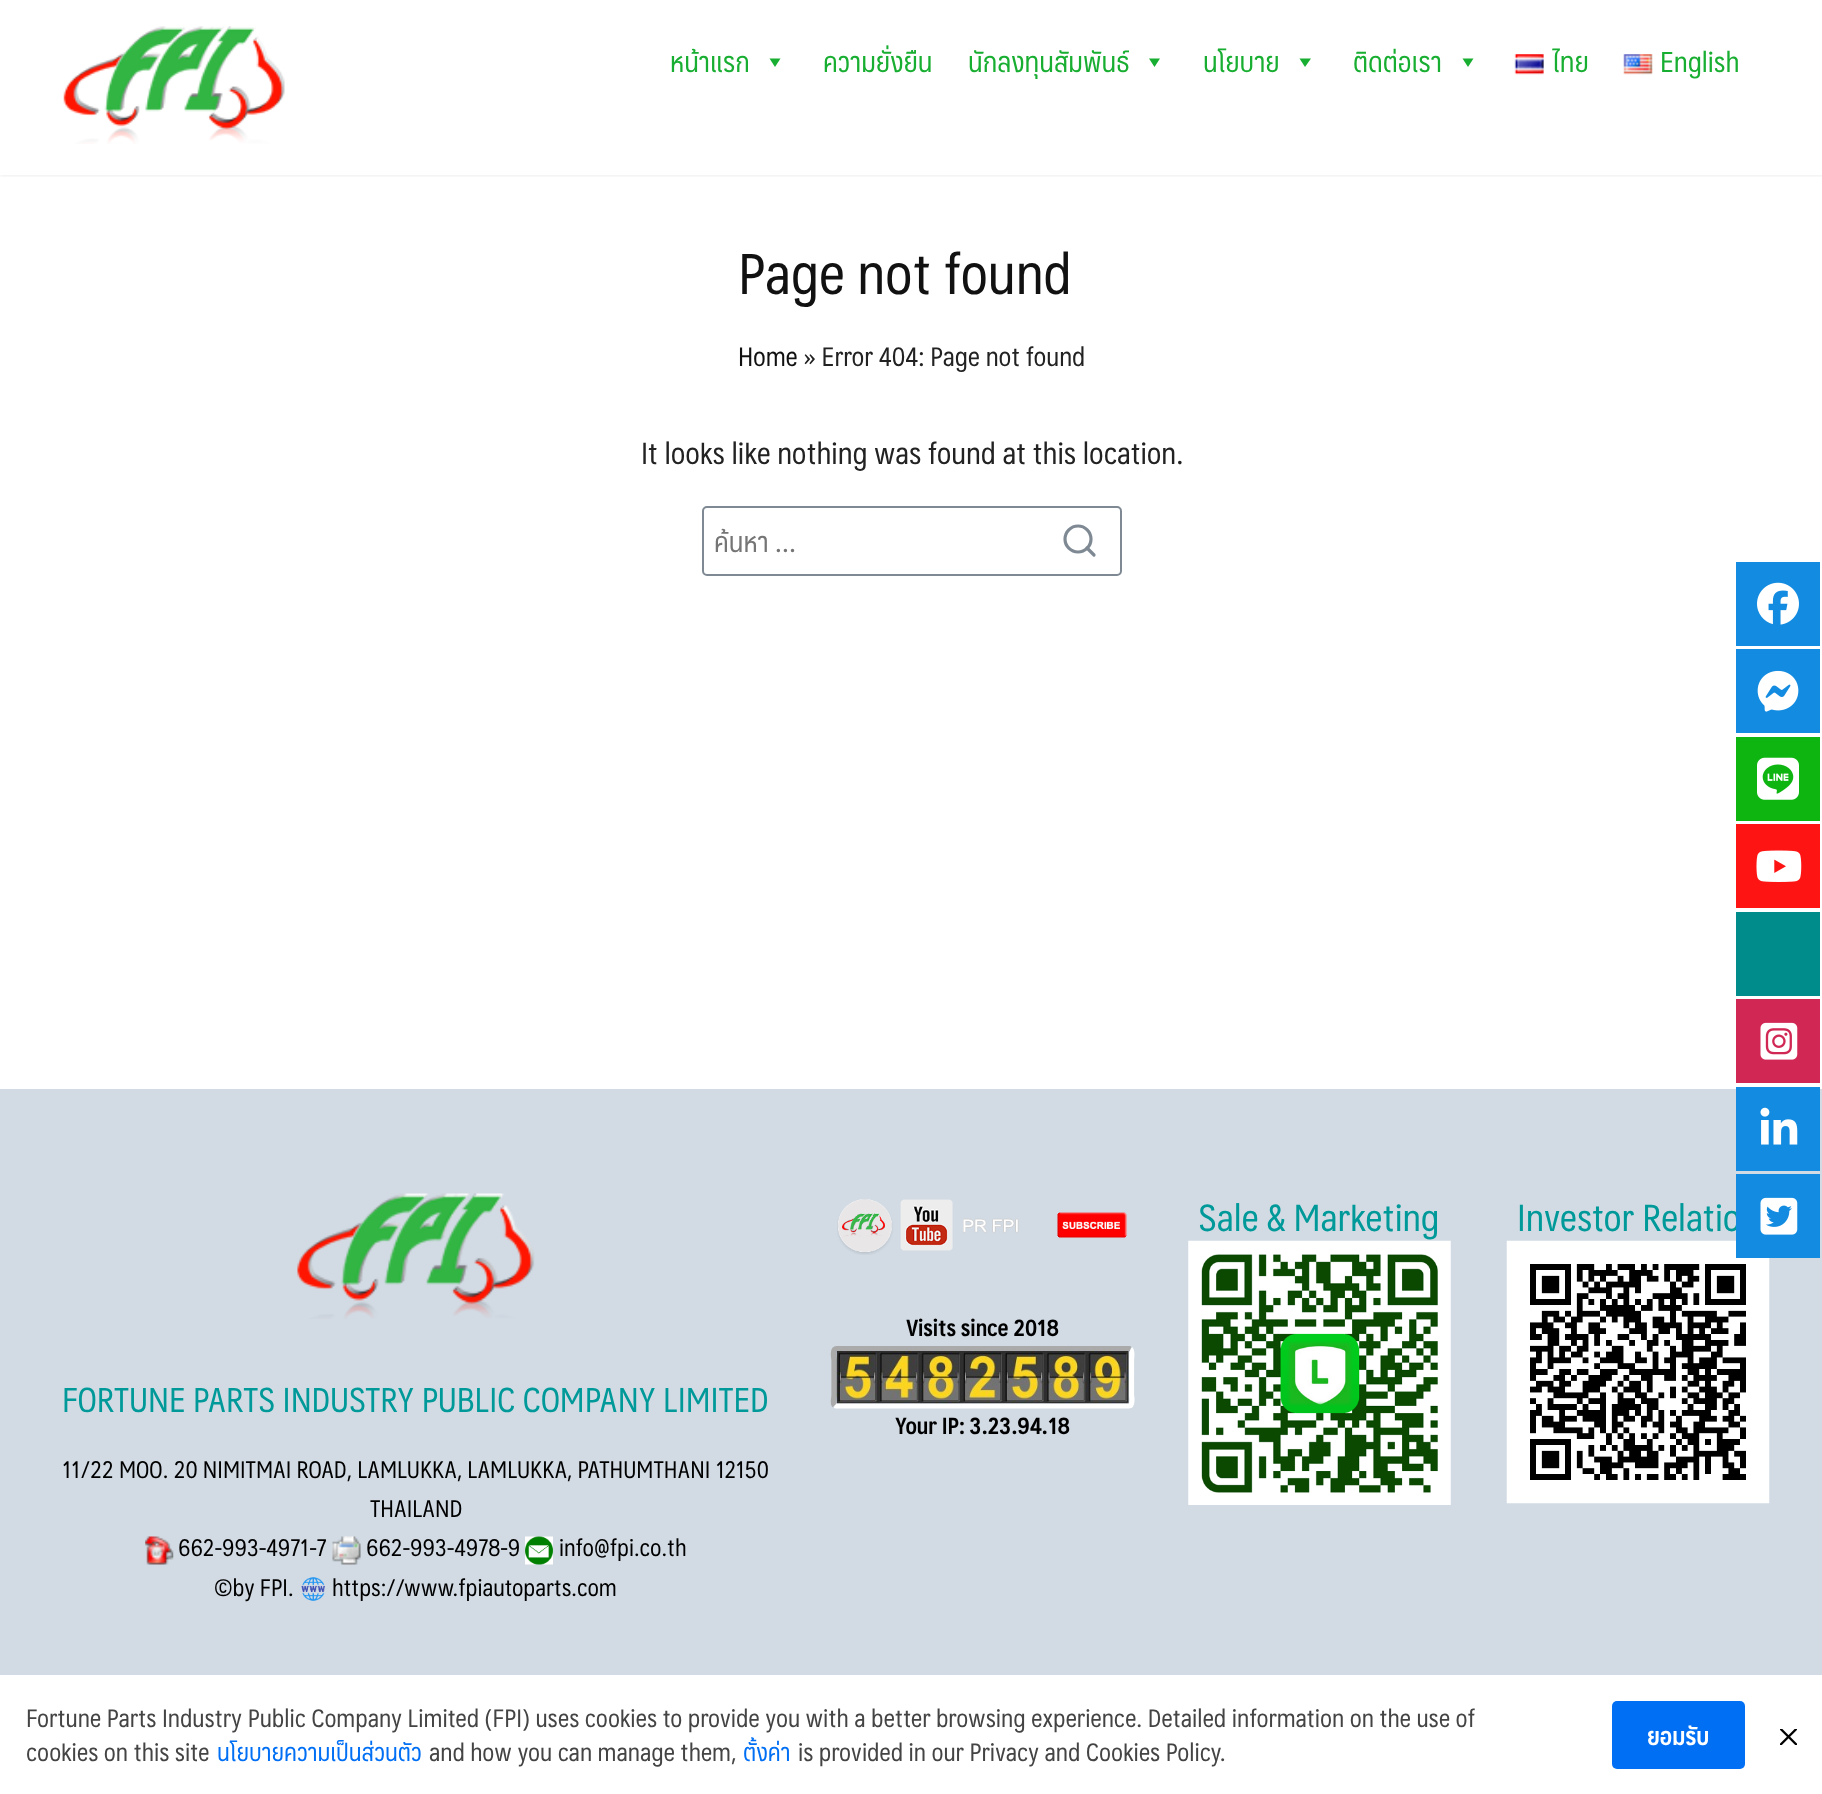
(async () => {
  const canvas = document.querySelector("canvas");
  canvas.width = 1822;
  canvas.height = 1794;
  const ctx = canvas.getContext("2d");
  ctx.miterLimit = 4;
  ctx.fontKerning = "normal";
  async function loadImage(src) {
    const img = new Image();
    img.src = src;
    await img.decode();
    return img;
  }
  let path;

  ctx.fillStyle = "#ffffff";
  ctx.fillRect(0, 0, 1822, 1794);
  ctx.save();
  ctx.beginPath();
  ctx.rect(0, 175, 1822, 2);
  ctx.clip();
  ctx.fillStyle = "rgba(0, 0, 0, 0.1)";
  ctx.filter = "blur(2.5px)";
  ctx.beginPath();
  ctx.rect(0, 0, 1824, 175);
  ctx.fill();
  ctx.filter = "none";
  ctx.restore();
  ctx.drawImage(await loadImage("img/1.png"), 63, 26, 222, 118);
  ctx.fillStyle = "#18ae31";
  path = new Path2D("M780.5 58.5L775 67L769.5 58.5Z");
  ctx.fill(path);
  path = new Path2D("M1160 58.5L1154.5 67L1149 58.5Z");
  ctx.fill(path);
  path = new Path2D("M1311 58.5L1305 67L1299.5 58.5Z");
  ctx.fill(path);
  path = new Path2D("M1473.5 58.5L1468 67L1462.5 58.5Z");
  ctx.fill(path);
  ctx.drawImage(await loadImage("img/2.png"), 1514, 54, 30, 21);
  ctx.drawImage(await loadImage("img/3.png"), 1623, 54, 30, 21);
  ctx.beginPath();
  ctx.roundRect(703, 507, 418, 68, 4);
  ctx.strokeStyle = "#7e8993";
  ctx.lineWidth = 2;
  ctx.stroke();
  ctx.beginPath();
  ctx.arc(1078, 539, 13, 0, Math.PI * 2);
  ctx.lineWidth = 3.2;
  ctx.stroke();
  path = new Path2D("M1094 555L1087 548");
  ctx.lineCap = "round";
  ctx.lineJoin = "round";
  ctx.stroke(path);
  ctx.fillStyle = "#d2dbe4";
  ctx.fillRect(0, 1089, 1822, 586);
  ctx.drawImage(await loadImage("img/4.png"), 1188, 1240, 263, 265);
  ctx.drawImage(await loadImage("img/5.png"), 1506, 1240, 264, 264);
  ctx.drawImage(await loadImage("img/6.png"), 297, 1193, 238, 126);
  ctx.drawImage(await loadImage("img/7.png"), 145, 1536, 29, 29);
  ctx.drawImage(await loadImage("img/8.png"), 332, 1536, 29, 29);
  ctx.drawImage(await loadImage("img/9.png"), 525, 1536, 28, 29);
  ctx.drawImage(await loadImage("img/10.png"), 301, 1577, 24, 24);
  ctx.drawImage(await loadImage("img/11.png"), 837, 1199, 290, 56);
  path = new Path2D("M1130.5 1349C1133 1351.5 1131.5 1356 1131.5 1360V1395C1131.5 1395 1133.5 1406 1129 1406H836.5L834.5 1405.5");
  ctx.strokeStyle = "#ffffff";
  ctx.lineWidth = 5.2;
  ctx.lineCap = "butt";
  ctx.lineJoin = "miter";
  ctx.stroke(path);
  path = new Path2D("M834.5 1405.5C832 1403 834 1398.5 834 1395V1360C834 1359.5 831.5 1348.5 836.5 1348.5H1129L1130.5 1349");
  ctx.strokeStyle = "#aaaaaa";
  ctx.stroke(path);
  ctx.drawImage(await loadImage("img/12.png"), 836, 1351, 293, 53);
  ctx.fillStyle = "#128be0";
  ctx.fillRect(1736, 562, 84, 84);
  ctx.drawImage(await loadImage("img/13.png"), 1757, 582, 42, 43);
  ctx.fillRect(1736, 649, 84, 84);
  ctx.drawImage(await loadImage("img/14.png"), 1757, 670, 42, 42);
  ctx.fillStyle = "#0eb511";
  ctx.fillRect(1736, 737, 84, 84);
  ctx.drawImage(await loadImage("img/15.png"), 1757, 757, 42, 43);
  ctx.fillStyle = "#ff1414";
  ctx.fillRect(1736, 824, 84, 84);
  ctx.drawImage(await loadImage("img/16.png"), 1756, 850, 46, 32);
  ctx.fillStyle = "#018c8c";
  ctx.fillRect(1736, 912, 84, 84);
  ctx.fillStyle = "#d02754";
  ctx.fillRect(1736, 999, 84, 84);
  ctx.drawImage(await loadImage("img/17.png"), 1760, 1022, 38, 38);
  ctx.fillStyle = "#128be0";
  ctx.fillRect(1736, 1087, 84, 84);
  ctx.drawImage(await loadImage("img/18.png"), 1760, 1107, 38, 38);
  ctx.fillStyle = "#006ff4";
  ctx.beginPath();
  ctx.roundRect(1612, 1701, 133, 68, 5);
  ctx.fill();
  ctx.drawImage(await loadImage("img/20.png"), 1780, 1729, 17, 16);
  ctx.font = "28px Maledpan";
  ctx.fillStyle = "#18ae31";
  for (const [text, x, y] of [
    ["หน้าแรก", 670, 72],
    ["ความยั่งยืน", 823, 72],
    ["นักลงทุนสัมพันธ์", 968, 72],
    ["นโยบาย", 1203, 72],
    ["ติดต่อเรา", 1353, 72],
    ["ไทย", 1552, 72],
    ["English", 1660, 72],
  ]) {
    ctx.fillText(text, x, y);
  }
  ctx.font = "56px Maledpan";
  ctx.fillStyle = "#111111";
  ctx.fillText("Page not found", 738, 294);
  ctx.font = "26px Maledpan";
  ctx.fillText("Home", 738, 366);
  ctx.fillStyle = "#222222";
  ctx.fillText("» Error 404: Page not found", 803, 366);
  ctx.font = "29.75px Maledpan";
  ctx.fillText("It looks like nothing was found at this location.", 641, 464);
  ctx.save();
  ctx.beginPath();
  ctx.rect(714, 516, 385, 51);
  ctx.clip();
  ctx.font = "28px Maledpan";
  ctx.fillStyle = "#757575";
  ctx.fillText("ค้นหา …", 714, 552);
  ctx.restore();
  ctx.font = "36.75px Maledpan";
  ctx.fillStyle = "#009999";
  ctx.fillText("Sale & Marketing", 1198, 1231);
  ctx.fillText("Investor Relatio", 1517, 1231);
  ctx.font = "33.7px Maledpan";
  ctx.fillText("FORTUNE PARTS INDUSTRY PUBLIC COMPANY LIMITED", 62, 1412);
  ctx.font = "23.3px Maledpan";
  ctx.fillStyle = "#000000";
  for (const [text, x, y] of [
    ["11/22 MOO. 20 NIMITMAI ROAD, LAMLUKKA, LAMLUKKA, PATHUMTHANI 12150", 62, 1478],
    ["THAILAND", 370, 1517],
    ["662-993-4971-7", 178, 1556],
    ["662-993-4978-9", 366, 1556],
    ["info@fpi.co.th", 559, 1556],
    ["©by FPI.", 214, 1596],
    ["https://www.fpiautoparts.com", 332, 1596],
  ]) {
    ctx.fillText(text, x, y);
  }
  ctx.font = "bold 22.75px Maledpan";
  ctx.fillText("Visits since 2018", 906, 1336);
  ctx.fillText("Your IP: 3.23.94.18", 895, 1434);
  ctx.fillStyle = "#128be0";
  ctx.fillRect(1736, 1174, 84, 84);
  ctx.drawImage(await loadImage("img/19.png"), 1760, 1197, 38, 38);
  ctx.font = "24.5px Maledpan";
  ctx.fillStyle = "#444444";
  ctx.fillText("Fortune Parts Industry Public Company Limited (FPI) uses cookies to provide you with a better browsing experience. Detailed information on the use of", 26, 1727);
  ctx.fillText("cookies on this site", 26, 1761);
  ctx.fillStyle = "#006ff4";
  ctx.fillText("นโยบายความเป็นส่วนตัว", 217, 1761);
  ctx.fillStyle = "#444444";
  ctx.fillText("and how you can manage them,", 429, 1761);
  ctx.fillStyle = "#006ff4";
  ctx.fillText("ตั้งค่า", 743, 1761);
  ctx.fillStyle = "#444444";
  ctx.fillText("is provided in our Privacy and Cookies Policy.", 798, 1761);
  ctx.font = "bold 24.5px Maledpan";
  ctx.fillStyle = "#ffffff";
  ctx.fillText("ยอมรับ", 1647, 1745);
})();
